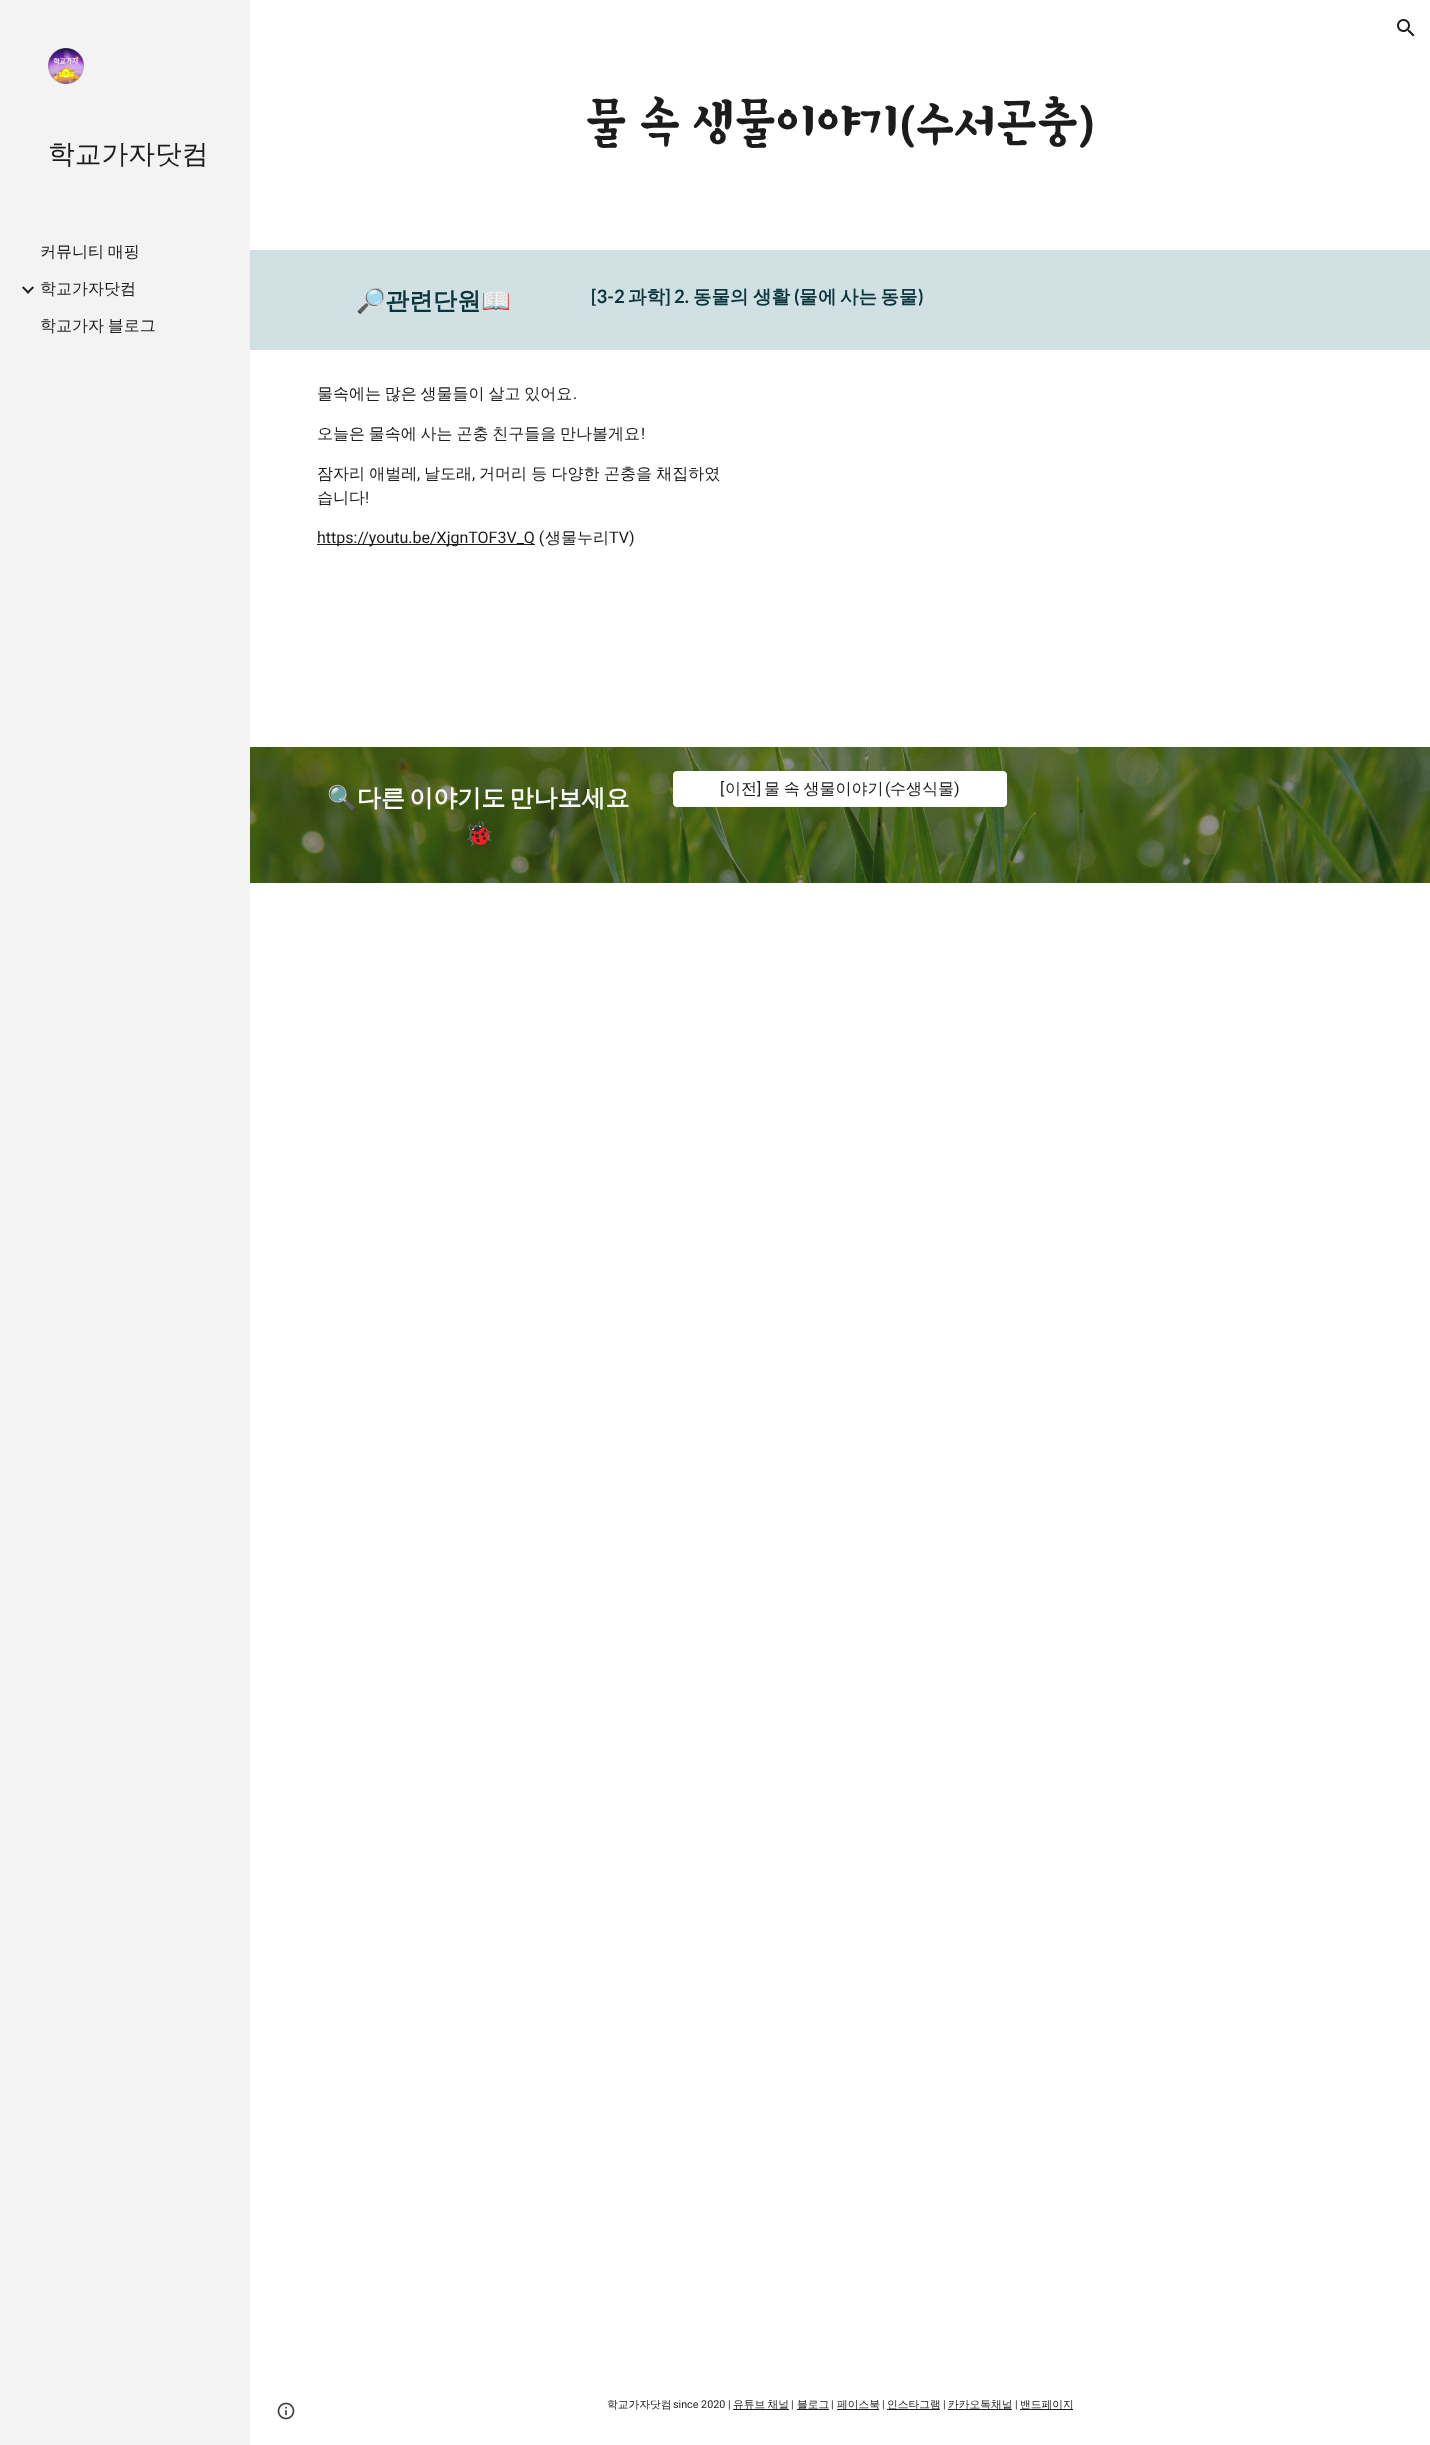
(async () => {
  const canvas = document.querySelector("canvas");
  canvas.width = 1430;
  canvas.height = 2445;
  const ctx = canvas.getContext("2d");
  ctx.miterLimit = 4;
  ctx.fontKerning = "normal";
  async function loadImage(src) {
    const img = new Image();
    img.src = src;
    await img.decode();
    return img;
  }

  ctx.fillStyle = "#ffffff";
  ctx.fillRect(0, 0, 1430, 2445);
  ctx.drawImage(await loadImage("img/1.png"), 1397, 19, 18, 18);
  ctx.fillStyle = "#f3f3f3";
  ctx.fillRect(0, 0, 250, 2445);
  ctx.drawImage(await loadImage("img/2.png"), 48, 48, 36, 36);
  ctx.drawImage(await loadImage("img/3.png"), 22, 286, 12, 8);
  ctx.fillStyle = "#d0e0e3";
  ctx.fillRect(250, 250, 1180, 100);
  ctx.fillStyle = "#1c1c1c";
  ctx.fillRect(317, 544, 218, 1);
  ctx.drawImage(await loadImage("img/4.png"), 250, 747, 1180, 136);
  ctx.fillStyle = "#ffffff";
  ctx.beginPath();
  ctx.roundRect(673.5, 771.5, 333, 35, 3.5);
  ctx.fill();
  ctx.strokeStyle = "#ffffff";
  ctx.stroke();
  ctx.drawImage(await loadImage("img/5.png"), 277, 2402, 18, 18);
  for (const [x, y, w, h, color] of [
    [733, 2409, 56, 1, "#1c1c1c"],
    [797, 2409, 32, 1, "#1c1c1c"],
    [837, 2409, 42, 1, "#1c1c1c"],
    [887, 2409, 53, 1, "#1c1c1c"],
    [948, 2409, 64, 1, "#1c1c1c"],
    [1020, 2409, 53, 1, "#1c1c1c"],
  ]) {
    ctx.fillStyle = color;
    ctx.fillRect(x, y, w, h);
  }
  ctx.font = "500 26.75px WenQuanYi Zen Hei";
  ctx.fillText("학교가자닷컴", 48, 163);
  ctx.wordSpacing = "-1px";
  ctx.font = "500 16px WenQuanYi Zen Hei";
  ctx.fillText("커뮤니티 매핑", 40, 257);
  ctx.wordSpacing = "0px";
  ctx.fillText("학교가자닷컴", 40, 294);
  ctx.wordSpacing = "-1px";
  ctx.fillText("학교가자 블로그", 40, 331);
  ctx.wordSpacing = "0px";
  ctx.font = "bold 53.25px Stylish";
  ctx.fillText("물 속 생물이야기(수서곤충)", 585, 141);
  ctx.font = "bold 24px Noto Color Emoji";
  ctx.fillStyle = "#0c343d";
  ctx.fillText("🔎", 356, 309);
  ctx.font = "bold 24px WenQuanYi Zen Hei";
  ctx.fillText("관련단원", 385, 309);
  ctx.font = "bold 24px Noto Color Emoji";
  ctx.fillText("📖", 481, 309);
  ctx.font = "bold 18.5px Lato";
  ctx.fillText("[3-2", 591, 303);
  ctx.font = "bold 18.5px WenQuanYi Zen Hei";
  ctx.fillText("과학", 628, 303);
  ctx.font = "bold 18.5px Lato";
  ctx.fillText("] 2.", 665, 303);
  ctx.font = "bold 18.5px WenQuanYi Zen Hei";
  ctx.fillText("동물의", 693, 303);
  ctx.fillText("생활", 753, 303);
  ctx.font = "bold 18.5px Lato";
  ctx.fillText("(", 794, 303);
  ctx.font = "bold 18.5px WenQuanYi Zen Hei";
  ctx.fillText("물", 799, 303);
  ctx.wordSpacing = "-2px";
  ctx.fillText("에 사는 동물", 818, 303);
  ctx.wordSpacing = "0px";
  ctx.font = "bold 18.5px Lato";
  ctx.fillText(")", 918, 303);
  ctx.wordSpacing = "-1px";
  ctx.font = "500 16px WenQuanYi Zen Hei";
  ctx.fillStyle = "#1c1c1c";
  ctx.fillText("물속에는 많은 생물들이 살고 있어요", 317, 399);
  ctx.wordSpacing = "0px";
  ctx.font = "16px Roboto";
  ctx.fillText(".", 573, 399);
  ctx.wordSpacing = "-1px";
  ctx.font = "500 16px WenQuanYi Zen Hei";
  ctx.fillText("오늘은 물속에 사는 곤충 친구들을 만나볼게요", 317, 439);
  ctx.wordSpacing = "0px";
  ctx.font = "16px Roboto";
  ctx.fillText("!", 641, 439);
  ctx.wordSpacing = "-0.5px";
  ctx.font = "500 16px WenQuanYi Zen Hei";
  ctx.fillText("잠자리 애벌레", 317, 479);
  ctx.wordSpacing = "0px";
  ctx.font = "16px Roboto";
  ctx.fillText(",", 417, 479);
  ctx.font = "500 16px WenQuanYi Zen Hei";
  ctx.fillText("날도래", 424, 479);
  ctx.font = "16px Roboto";
  ctx.fillText(",", 472, 479);
  ctx.wordSpacing = "-0.5px";
  ctx.font = "500 16px WenQuanYi Zen Hei";
  ctx.fillText("거머리 등 다양한 곤충을 채집하였", 479, 479);
  ctx.wordSpacing = "0px";
  ctx.fillText("습니다", 317, 503);
  ctx.font = "16px Roboto";
  ctx.fillText("!", 365, 503);
  ctx.fillText("https://youtu.be/XjgnTOF3V_Q (", 317, 543);
  ctx.font = "500 16px WenQuanYi Zen Hei";
  ctx.fillText("생물누리", 545, 543);
  ctx.font = "16px Roboto";
  ctx.fillText("TV)", 609, 543);
  ctx.font = "bold 24px Noto Color Emoji";
  ctx.fillStyle = "#f9f9f9";
  ctx.fillText("🔍", 327, 806);
  ctx.wordSpacing = "-3px";
  ctx.font = "bold 24px WenQuanYi Zen Hei";
  ctx.fillText("다른 이야기도 만나보세요", 357, 806);
  ctx.wordSpacing = "0px";
  ctx.font = "bold 24px Noto Color Emoji";
  ctx.fillText("🐞", 464, 842);
  ctx.font = "16px Roboto";
  ctx.fillStyle = "#1c1c1c";
  ctx.fillText("[", 720, 794);
  ctx.font = "500 16px WenQuanYi Zen Hei";
  ctx.fillText("이전", 725, 794);
  ctx.font = "16px Roboto";
  ctx.fillText("]", 757, 794);
  ctx.wordSpacing = "-1px";
  ctx.font = "500 16px WenQuanYi Zen Hei";
  ctx.fillText("물 속 생물이야기", 764, 794);
  ctx.wordSpacing = "0px";
  ctx.font = "16px Roboto";
  ctx.fillText("(", 885, 794);
  ctx.font = "500 16px WenQuanYi Zen Hei";
  ctx.fillText("수생식물", 890, 794);
  ctx.font = "16px Roboto";
  ctx.fillText(")", 954, 794);
  ctx.font = "500 10.75px WenQuanYi Zen Hei";
  ctx.fillText("학교가자닷컴", 607, 2408);
  ctx.font = "10.75px Roboto";
  ctx.fillText("since 2020 |", 673, 2408);
  ctx.wordSpacing = "-1px";
  ctx.font = "500 10.75px WenQuanYi Zen Hei";
  ctx.fillText("유튜브 채널", 733, 2408);
  ctx.wordSpacing = "0px";
  ctx.font = "10.75px Roboto";
  ctx.fillText("|", 791, 2408);
  ctx.font = "500 10.75px WenQuanYi Zen Hei";
  ctx.fillText("블로그", 797, 2408);
  ctx.font = "10.75px Roboto";
  ctx.fillText("|", 831, 2408);
  ctx.font = "500 10.75px WenQuanYi Zen Hei";
  ctx.fillText("페이스북", 837, 2408);
  ctx.font = "10.75px Roboto";
  ctx.fillText("|", 882, 2408);
  ctx.font = "500 10.75px WenQuanYi Zen Hei";
  ctx.fillText("인스타그램", 887, 2408);
  ctx.font = "10.75px Roboto";
  ctx.fillText("|", 943, 2408);
  ctx.font = "500 10.75px WenQuanYi Zen Hei";
  ctx.fillText("카카오톡채널", 948, 2408);
  ctx.font = "10.75px Roboto";
  ctx.fillText("|", 1015, 2408);
  ctx.font = "500 10.75px WenQuanYi Zen Hei";
  ctx.fillText("밴드페이지", 1020, 2408);
})();
